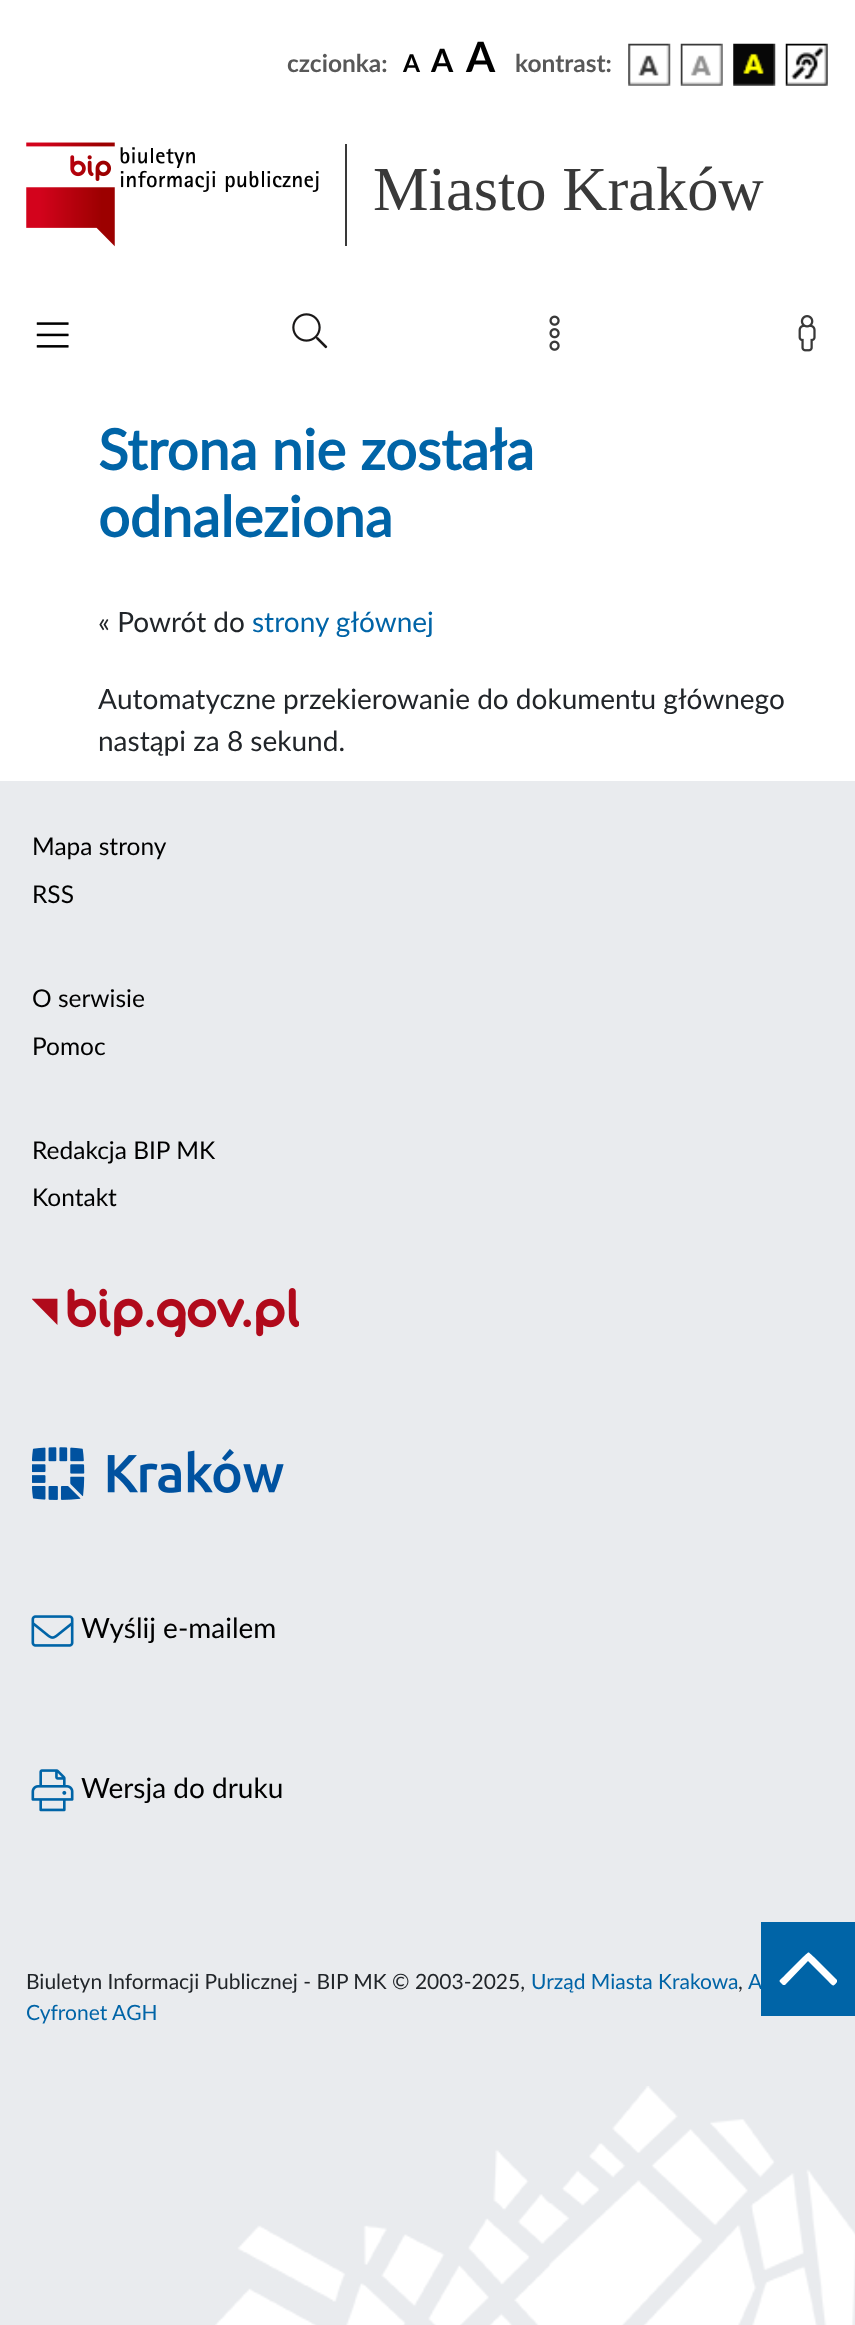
(async () => {
  const canvas = document.querySelector("canvas");
  canvas.width = 855;
  canvas.height = 2325;
  const ctx = canvas.getContext("2d");
  ctx.miterLimit = 4;
  ctx.fontKerning = "normal";
  async function loadImage(src) {
    const img = new Image();
    img.src = src;
    await img.decode();
    return img;
  }
  let path;

  ctx.fillStyle = "#ffffff";
  ctx.fillRect(0, 0, 855, 2325);
  ctx.drawImage(await loadImage("img/1.png"), 628, 43, 43, 43);
  ctx.drawImage(await loadImage("img/2.png"), 680, 43, 43, 43);
  ctx.drawImage(await loadImage("img/3.png"), 733, 43, 43, 43);
  ctx.drawImage(await loadImage("img/4.png"), 785, 43, 43, 43);
  ctx.drawImage(await loadImage("img/5.png"), 26, 142, 321, 105);
  ctx.drawImage(await loadImage("img/6.png"), 36, 322, 33, 26);
  ctx.drawImage(await loadImage("img/7.png"), 292, 313, 36, 36);
  ctx.drawImage(await loadImage("img/8.png"), 549, 315, 11, 36);
  ctx.drawImage(await loadImage("img/9.png"), 798, 315, 18, 37);
  ctx.fillStyle = "#e9ebee";
  ctx.fillRect(0, 781, 855, 1544);
  ctx.drawImage(await loadImage("img/10.png"), 215, 2086, 640, 239);
  ctx.drawImage(await loadImage("img/11.png"), 32, 1288, 267, 49);
  ctx.drawImage(await loadImage("img/12.png"), 32, 1447, 252, 53);
  ctx.drawImage(await loadImage("img/13.png"), 31, 1615, 43, 32);
  ctx.drawImage(await loadImage("img/14.png"), 31, 1769, 43, 43);
  ctx.fillStyle = "#0064a7";
  ctx.fillRect(761, 1922, 94, 94);
  ctx.fillStyle = "#ffffff";
  path = new Path2D("M780 1982L783 1985C783 1985 784 1985 785 1985L808 1961L828 1981C832 1985 833 1988 837 1982V1980L814 1957C807 1951 810 1951 803 1957L785 1975C783 1978 778 1980 780 1982Z");
  ctx.fill(path);
  ctx.font = "bold 24.5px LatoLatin";
  ctx.fillStyle = "#585858";
  ctx.fillText("czcionka:", 287, 72);
  ctx.fillStyle = "#000000";
  ctx.fillText("A", 403, 72);
  ctx.font = "bold 32px LatoLatin";
  ctx.fillText("A", 431, 72);
  ctx.font = "bold 42px LatoLatin";
  ctx.fillText("A", 466, 72);
  ctx.font = "bold 24.5px LatoLatin";
  ctx.fillStyle = "#585858";
  ctx.fillText("kontrast:", 515, 72);
  ctx.font = "62.5px Liberation Serif";
  ctx.fillStyle = "#393939";
  ctx.fillText("Miasto Kraków", 373, 210);
  ctx.font = "bold 56px 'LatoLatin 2'";
  ctx.fillStyle = "#0064a7";
  ctx.fillText("Strona nie została", 98, 470);
  ctx.fillText("odnaleziona", 98, 537);
  ctx.font = "28px LatoLatin";
  ctx.fillStyle = "#212529";
  ctx.fillText("« Powrót do", 98, 632);
  ctx.fillStyle = "#0064a7";
  ctx.fillText("strony głównej", 252, 632);
  ctx.fillStyle = "#212529";
  ctx.fillText("Automatyczne przekierowanie do dokumentu głównego", 98, 709);
  ctx.fillText("nastąpi za 8 sekund.", 98, 751);
  ctx.font = "24.5px LatoLatin";
  ctx.fillStyle = "#000000";
  for (const [text, x, y] of [
    ["Mapa strony", 32, 855],
    ["RSS", 32, 903],
    ["O serwisie", 32, 1007],
    ["Pomoc", 32, 1055],
    ["Redakcja BIP MK", 32, 1159],
    ["Kontakt", 32, 1206],
  ]) {
    ctx.fillText(text, x, y);
  }
  ctx.font = "28px LatoLatin";
  ctx.fillText("Wyślij e-mailem", 81, 1638);
  ctx.fillText("Wersja do druku", 81, 1798);
  ctx.font = "21px LatoLatin";
  ctx.fillStyle = "#212529";
  ctx.fillText("Biuletyn Informacji Publicznej - BIP MK © 2003-2025,", 26, 1989);
  ctx.fillStyle = "#0064a7";
  ctx.fillText("Urząd Miasta Krakowa", 531, 1989);
  ctx.fillStyle = "#212529";
  ctx.fillText(",", 738, 1989);
  ctx.fillStyle = "#0064a7";
  for (const [text, x, y] of [
    ["A", 748, 1989],
    ["Cyfronet", 26, 2020],
    ["AGH", 112, 2020],
  ]) {
    ctx.fillText(text, x, y);
  }
})();
